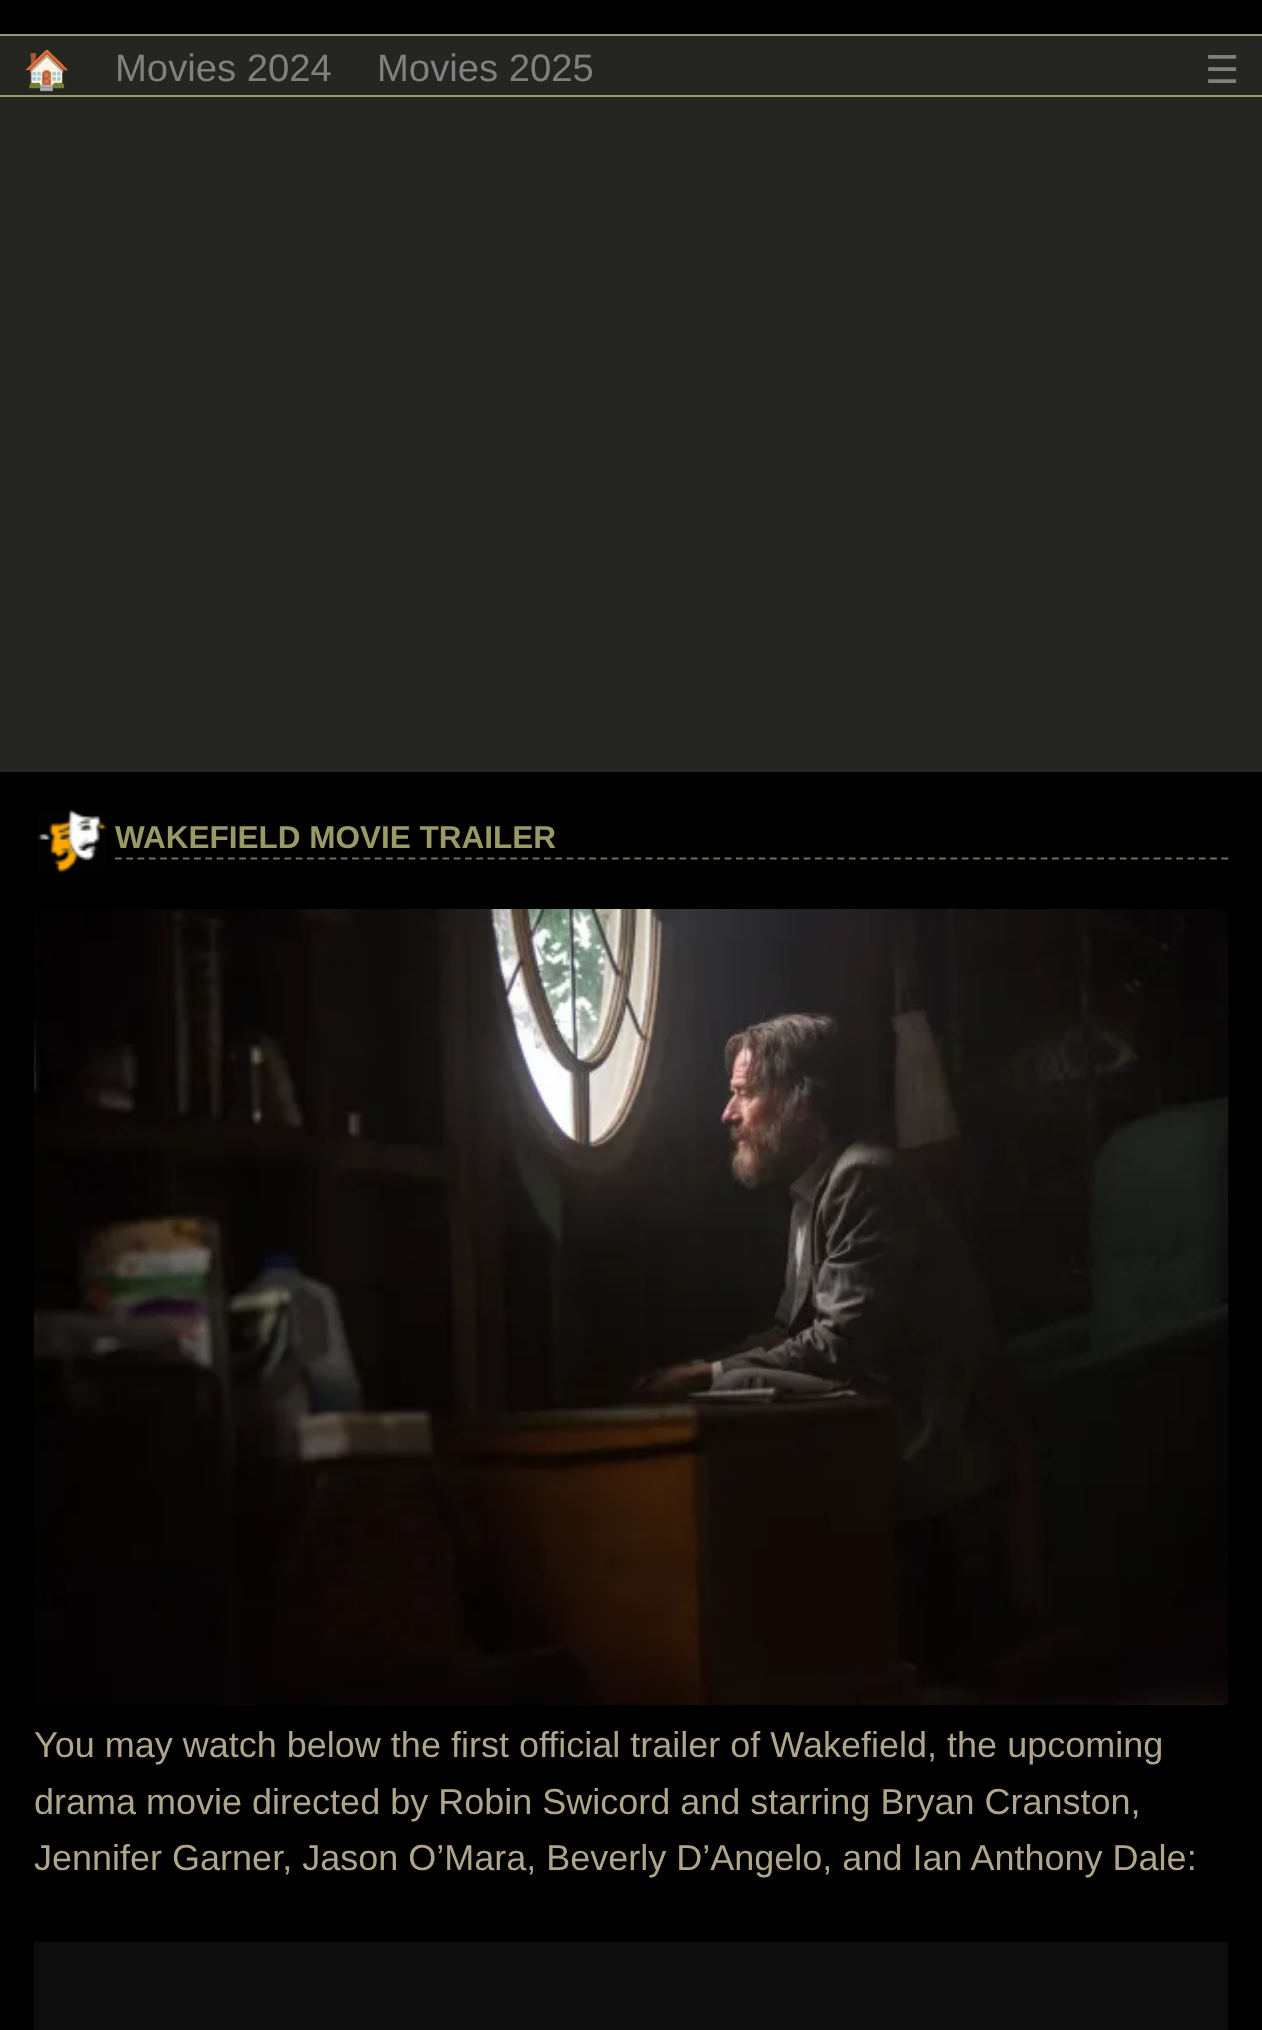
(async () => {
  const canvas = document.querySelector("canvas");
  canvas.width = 1262;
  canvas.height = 2030;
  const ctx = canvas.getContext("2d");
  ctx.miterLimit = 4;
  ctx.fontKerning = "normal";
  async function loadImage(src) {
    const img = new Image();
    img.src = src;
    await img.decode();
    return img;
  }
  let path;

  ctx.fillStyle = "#252622";
  ctx.fillRect(0, 0, 1262, 2030);
  for (const [x, y, w, h, color] of [
    [0, 0, 1262, 34, "#000000"],
    [0, 34, 1262, 2, "#999966"],
    [0, 95, 1262, 2, "#999966"],
    [0, 772, 1262, 1258, "#000000"],
  ]) {
    ctx.fillStyle = color;
    ctx.fillRect(x, y, w, h);
  }
  ctx.drawImage(await loadImage("img/1.png"), 37, 809, 70, 65);
  path = new Path2D("M115 858.5H1228.5");
  ctx.strokeStyle = "#767154";
  ctx.lineWidth = 2.2;
  ctx.setLineDash([6.75, 4.54]);
  ctx.stroke(path);
  ctx.drawImage(await loadImage("img/2.png"), 34, 909, 1195, 797);
  ctx.fillStyle = "#0d0d0d";
  ctx.fillRect(34, 1942, 1194, 88);
  ctx.font = "38.25px Noto Color Emoji";
  ctx.fillStyle = "#808080";
  ctx.fillText("🏠", 23, 83);
  ctx.font = "38.25px Liberation Sans";
  ctx.fillText("Movies 2024", 115, 81);
  ctx.fillText("Movies 2025", 377, 81);
  ctx.font = "38.25px DejaVu Sans";
  ctx.fillText("☰", 1205, 83);
  ctx.font = "bold 31.5px Liberation Sans";
  ctx.fillStyle = "#999966";
  ctx.fillText("WAKEFIELD MOVIE TRAILER", 115, 848);
  ctx.font = "36px Liberation Sans";
  ctx.fillStyle = "#aea58c";
  for (const [text, x, y] of [
    ["You may watch below the first official trailer of Wakefield, the upcoming", 34, 1757],
    ["drama movie directed by Robin Swicord and starring Bryan Cranston,", 34, 1814],
    ["Jennifer Garner, Jason O’Mara, Beverly D’Angelo, and Ian Anthony Dale:", 34, 1870],
  ]) {
    ctx.fillText(text, x, y);
  }
})();
